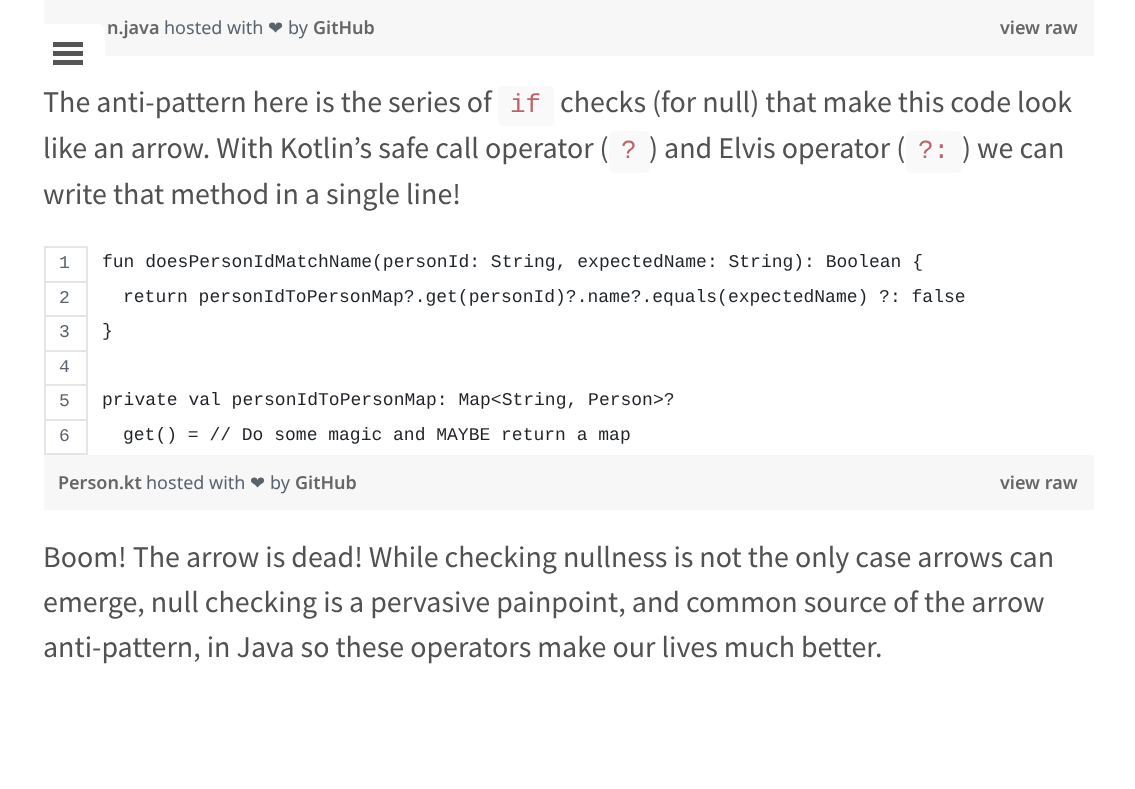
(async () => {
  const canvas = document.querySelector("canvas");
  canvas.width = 1135;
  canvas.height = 789;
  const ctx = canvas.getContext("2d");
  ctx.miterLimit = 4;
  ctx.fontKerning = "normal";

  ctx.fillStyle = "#ffffff";
  ctx.fillRect(0, 0, 1135, 789);
  ctx.fillStyle = "#f7f7f7";
  ctx.fillRect(44, 0, 1050, 56);
  ctx.fillStyle = "#f9f9f9";
  ctx.beginPath();
  ctx.roundRect(498, 86, 56, 40, 5);
  ctx.fill();
  ctx.beginPath();
  ctx.roundRect(609, 131, 41, 42, 5);
  ctx.fill();
  ctx.beginPath();
  ctx.roundRect(906, 131, 56, 42, 5);
  ctx.fill();
  for (const [x, y, w, h, color] of [
    [44, 246, 43, 2, "#e5e5e5"],
    [44, 281, 43, 2, "#e5e5e5"],
    [44, 315, 43, 2, "#e5e5e5"],
    [44, 350, 43, 2, "#e5e5e5"],
    [44, 384, 43, 2, "#e5e5e5"],
    [44, 419, 43, 2, "#e5e5e5"],
    [86, 419, 2, 36, "#e5e5e5"],
    [86, 384, 2, 36, "#e5e5e5"],
    [86, 350, 2, 36, "#e5e5e5"],
    [86, 315, 2, 36, "#e5e5e5"],
    [86, 281, 2, 36, "#e5e5e5"],
    [86, 246, 2, 36, "#e5e5e5"],
    [44, 453, 43, 2, "#e5e5e5"],
    [44, 419, 2, 36, "#e5e5e5"],
    [44, 384, 2, 36, "#e5e5e5"],
    [44, 350, 2, 36, "#e5e5e5"],
    [44, 315, 2, 36, "#e5e5e5"],
    [44, 281, 2, 36, "#e5e5e5"],
    [44, 246, 2, 36, "#e5e5e5"],
    [44, 455, 1050, 55, "#f7f7f7"],
  ]) {
    ctx.fillStyle = color;
    ctx.fillRect(x, y, w, h);
  }
  ctx.fillStyle = "#ffffff";
  ctx.beginPath();
  ctx.roundRect(30, 24, 75, 60, 8);
  ctx.fill();
  for (const [x, y, w, h, color] of [
    [53, 42, 30, 5, "#555555"],
    [53, 51, 30, 5, "#555555"],
    [53, 60, 30, 5, "#555555"],
  ]) {
    ctx.fillStyle = color;
    ctx.fillRect(x, y, w, h);
  }
  ctx.font = "600 18px Noto Sans";
  ctx.fillStyle = "#666666";
  ctx.fillText("n.java", 107, 34);
  ctx.font = "18px Noto Sans";
  ctx.fillStyle = "#59636e";
  ctx.fillText("hosted with", 164, 34);
  ctx.font = "18px DejaVu Sans";
  ctx.fillText("❤", 268, 34);
  ctx.font = "18px Noto Sans";
  ctx.fillText("by", 288, 34);
  ctx.font = "600 18px Noto Sans";
  ctx.fillStyle = "#666666";
  ctx.fillText("GitHub", 313, 34);
  ctx.fillText("view raw", 1000, 34);
  ctx.font = "30px Source Sans Pro";
  ctx.fillStyle = "#515151";
  ctx.fillText("The anti-pattern here is the series of", 43, 112);
  ctx.font = "26px Liberation Mono";
  ctx.fillStyle = "#bf616a";
  ctx.fillText("if", 510, 112);
  ctx.font = "30px Source Sans Pro";
  ctx.fillStyle = "#515151";
  ctx.fillText("checks (for null) that make this code look", 560, 112);
  ctx.fillText("like an arrow. With Kotlin’s safe call operator (", 43, 158);
  ctx.font = "26px Liberation Mono";
  ctx.fillStyle = "#bf616a";
  ctx.fillText("?", 621, 158);
  ctx.font = "30px Source Sans Pro";
  ctx.fillStyle = "#515151";
  ctx.fillText(") and Elvis operator (", 649, 158);
  ctx.font = "26px Liberation Mono";
  ctx.fillStyle = "#bf616a";
  ctx.fillText("?:", 918, 158);
  ctx.font = "30px Source Sans Pro";
  ctx.fillStyle = "#515151";
  ctx.fillText(") we can", 962, 158);
  ctx.fillText("write that method in a single line!", 43, 204);
  ctx.font = "18px Liberation Mono";
  ctx.fillStyle = "#59636e";
  ctx.fillText("1", 59, 268);
  ctx.fillStyle = "#1f2328";
  ctx.fillText("fun doesPersonIdMatchName(personId: String, expectedName: String): Boolean {", 102, 267);
  ctx.fillStyle = "#59636e";
  ctx.fillText("2", 59, 303);
  ctx.fillStyle = "#1f2328";
  ctx.fillText("return personIdToPersonMap?.get(personId)?.name?.equals(expectedName) ?: false", 123, 302);
  ctx.fillStyle = "#59636e";
  ctx.fillText("3", 59, 337);
  ctx.fillStyle = "#1f2328";
  ctx.fillText("}", 102, 336);
  ctx.fillStyle = "#59636e";
  ctx.fillText("4", 59, 372);
  ctx.fillText("5", 59, 406);
  ctx.fillStyle = "#1f2328";
  ctx.fillText("private val personIdToPersonMap: Map<String, Person>?", 102, 405);
  ctx.fillStyle = "#59636e";
  ctx.fillText("6", 59, 441);
  ctx.fillStyle = "#1f2328";
  ctx.fillText("get() = // Do some magic and MAYBE return a map", 123, 440);
  ctx.font = "600 18px Noto Sans";
  ctx.fillStyle = "#666666";
  ctx.fillText("Person.kt", 58, 489);
  ctx.font = "18px Noto Sans";
  ctx.fillStyle = "#59636e";
  ctx.fillText("hosted with", 146, 489);
  ctx.font = "18px DejaVu Sans";
  ctx.fillText("❤", 250, 489);
  ctx.font = "18px Noto Sans";
  ctx.fillText("by", 270, 489);
  ctx.font = "600 18px Noto Sans";
  ctx.fillStyle = "#666666";
  ctx.fillText("GitHub", 295, 489);
  ctx.fillText("view raw", 1000, 489);
  ctx.font = "30px Source Sans Pro";
  ctx.fillStyle = "#515151";
  for (const [text, x, y] of [
    ["Boom! The arrow is dead! While checking nullness is not the only case arrows can", 43, 567],
    ["emerge, null checking is a pervasive painpoint, and common source of the arrow", 43, 612],
    ["anti-pattern, in Java so these operators make our lives much better.", 43, 657],
  ]) {
    ctx.fillText(text, x, y);
  }
})();
